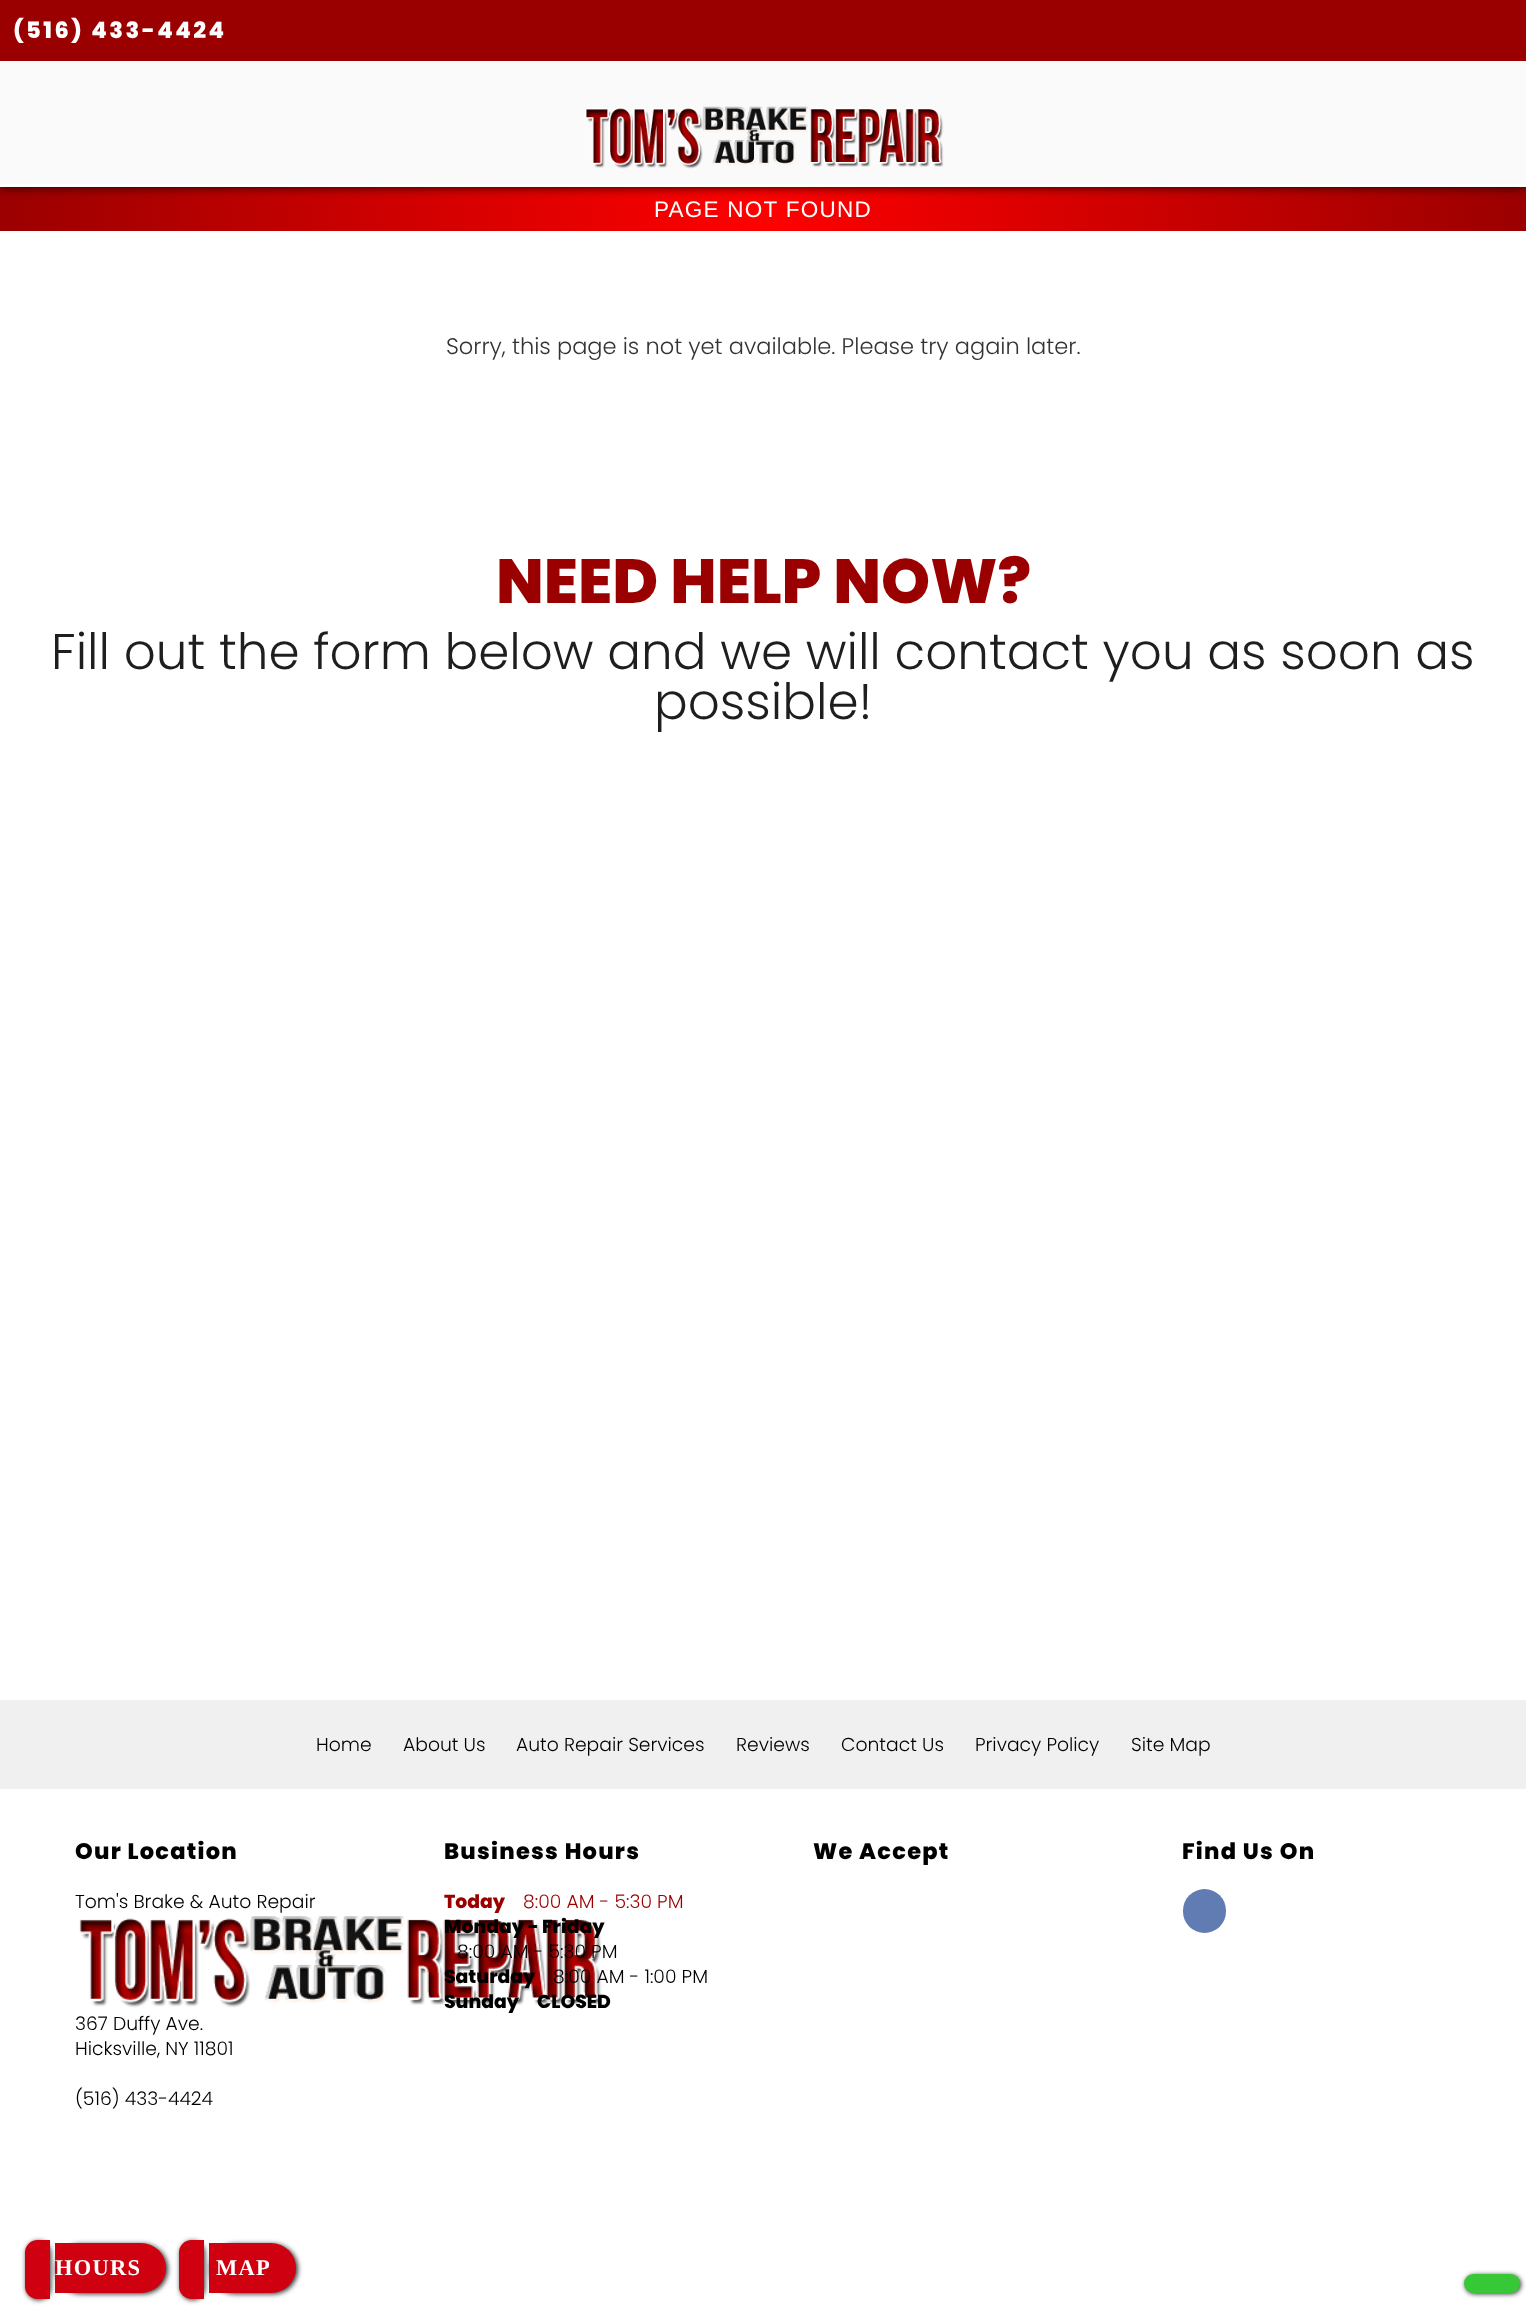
(async () => {
  const canvas = document.querySelector("canvas");
  canvas.width = 1526;
  canvas.height = 2317;
  const ctx = canvas.getContext("2d");
  ctx.miterLimit = 4;
  ctx.fontKerning = "normal";
  async function loadImage(src) {
    const img = new Image();
    img.src = src;
    await img.decode();
    return img;
  }
  let gradient;

  ctx.fillStyle = "#ffffff";
  ctx.fillRect(0, 0, 1526, 2317);
  gradient = ctx.createLinearGradient(0, 209, 1526, 209);
  gradient.addColorStop(0, "#9b0000");
  gradient.addColorStop(0.5, "#ff0000");
  gradient.addColorStop(1, "#9b0000");
  ctx.fillStyle = gradient;
  ctx.fillRect(0, 187, 1526, 44);
  ctx.fillStyle = "#000000";
  ctx.filter = "blur(6px)";
  ctx.beginPath();
  ctx.rect(0, 36, 1526, 150);
  ctx.fill();
  ctx.filter = "none";
  for (const [x, y, w, h, color] of [
    [0, 61, 1526, 123, "#fafafa"],
    [0, 184, 1526, 3, "#ffffff"],
    [0, 0, 1526, 61, "#9b0000"],
  ]) {
    ctx.fillStyle = color;
    ctx.fillRect(x, y, w, h);
  }
  ctx.drawImage(await loadImage("img/1.png"), 585, 106, 359, 63);
  ctx.fillStyle = "#f0f0f0";
  ctx.fillRect(0, 1700, 1526, 89);
  ctx.drawImage(await loadImage("img/2.png"), 79, 1916, 523, 92);
  ctx.fillStyle = "#607cb2";
  ctx.beginPath();
  ctx.roundRect(1183, 1889, 43, 44, 21.5);
  ctx.fill();
  ctx.fillStyle = "rgba(0, 0, 0, 0.8)";
  ctx.filter = "blur(2.5px)";
  ctx.beginPath();
  ctx.roundRect(26, 2241, 25, 59, 12.5);
  ctx.fill();
  ctx.filter = "none";
  ctx.fillStyle = "#cf000f";
  ctx.beginPath();
  ctx.roundRect(25, 2240, 25, 59, [12.5, 0, 0, 12.5]);
  ctx.fill();
  ctx.fillStyle = "rgba(0, 0, 0, 0.8)";
  ctx.filter = "blur(2.5px)";
  ctx.beginPath();
  ctx.roundRect(56, 2244, 112, 50, 25);
  ctx.fill();
  ctx.filter = "none";
  ctx.fillStyle = "#cf000f";
  ctx.beginPath();
  ctx.roundRect(55, 2243, 111, 50, [0, 25, 25, 0]);
  ctx.fill();
  ctx.fillStyle = "rgba(0, 0, 0, 0.8)";
  ctx.filter = "blur(2.5px)";
  ctx.beginPath();
  ctx.roundRect(180, 2241, 25, 59, 12.5);
  ctx.fill();
  ctx.filter = "none";
  ctx.fillStyle = "#cf000f";
  ctx.beginPath();
  ctx.roundRect(179, 2240, 25, 59, [12.5, 0, 0, 12.5]);
  ctx.fill();
  ctx.fillStyle = "rgba(0, 0, 0, 0.8)";
  ctx.filter = "blur(2.5px)";
  ctx.beginPath();
  ctx.roundRect(210, 2244, 88, 50, 25);
  ctx.fill();
  ctx.filter = "none";
  ctx.fillStyle = "#cf000f";
  ctx.beginPath();
  ctx.roundRect(209, 2243, 87, 50, [0, 25, 25, 0]);
  ctx.fill();
  ctx.fillStyle = "rgba(0, 0, 0, 0.8)";
  ctx.filter = "blur(2.5px)";
  ctx.beginPath();
  ctx.roundRect(1465, 2275, 56, 19, 9.5);
  ctx.fill();
  ctx.filter = "none";
  ctx.fillStyle = "#37c837";
  ctx.beginPath();
  ctx.roundRect(1464, 2274, 56, 19, 9.5);
  ctx.fill();
  ctx.letterSpacing = "2.5px";
  ctx.font = "800 22.5px Poppins";
  ctx.fillStyle = "#ffffff";
  ctx.fillText("(516) 433-4424", 13, 38);
  ctx.letterSpacing = "1.25px";
  ctx.font = "22.5px Liberation Sans";
  ctx.fillText("PAGE NOT FOUND", 654, 217);
  ctx.letterSpacing = "0px";
  ctx.font = "300 22.5px Poppins";
  ctx.fillStyle = "#333333";
  ctx.fillText("Sorry, this page is not yet available. Please try again later.", 446, 354);
  ctx.font = "800 62.5px Poppins";
  ctx.fillStyle = "#9b0000";
  ctx.fillText("NEED HELP NOW?", 496, 603);
  ctx.font = "300 50px Poppins";
  ctx.fillStyle = "#1e1e1e";
  ctx.fillText("Fill out the form below and we will contact you as soon as", 51, 669);
  ctx.fillText("possible!", 654, 719);
  ctx.font = "300 18.75px Poppins";
  ctx.fillStyle = "#000000";
  for (const [text, x, y] of [
    ["Home", 316, 1751],
    ["About Us", 403, 1751],
    ["Auto Repair Services", 516, 1751],
    ["Reviews", 736, 1751],
    ["Contact Us", 841, 1751],
    ["Privacy Policy", 975, 1751],
    ["Site Map", 1131, 1751],
  ]) {
    ctx.fillText(text, x, y);
  }
  ctx.letterSpacing = "1.25px";
  ctx.font = "800 22.5px Poppins";
  ctx.fillText("Our Location", 75, 1859);
  ctx.letterSpacing = "0px";
  ctx.font = "300 18.75px Poppins";
  for (const [text, x, y] of [
    ["Tom's Brake & Auto Repair", 75, 1908],
    ["367 Duffy Ave.", 75, 2030],
    ["Hicksville, NY 11801", 75, 2055],
    ["(516) 433-4424", 75, 2105],
  ]) {
    ctx.fillText(text, x, y);
  }
  ctx.letterSpacing = "1.25px";
  ctx.font = "800 22.5px Poppins";
  ctx.fillText("Business Hours", 444, 1859);
  ctx.letterSpacing = "0px";
  ctx.font = "800 18.75px Poppins";
  ctx.fillStyle = "#9b0000";
  ctx.fillText("Today", 444, 1908);
  ctx.font = "300 18.75px Poppins";
  ctx.fillText("8:00 AM - 5:30 PM", 523, 1908);
  ctx.font = "800 18.75px Poppins";
  ctx.fillStyle = "#000000";
  ctx.fillText("Monday - Friday", 444, 1933);
  ctx.font = "300 18.75px Poppins";
  ctx.fillText("8:00 AM - 5:30 PM", 457, 1958);
  ctx.font = "800 18.75px Poppins";
  ctx.fillText("Saturday", 444, 1983);
  ctx.font = "300 18.75px Poppins";
  ctx.fillText("8:00 AM - 1:00 PM", 553, 1983);
  ctx.font = "800 18.75px Poppins";
  ctx.fillText("Sunday", 444, 2008);
  ctx.fillText("CLOSED", 537, 2008);
  ctx.letterSpacing = "1.25px";
  ctx.font = "800 22.5px Poppins";
  ctx.fillText("We Accept", 813, 1859);
  ctx.fillText("Find Us On", 1182, 1859);
  ctx.font = "bold 22.5px Liberation Serif";
  ctx.fillStyle = "#ffffff";
  ctx.fillText("HOURS", 55, 2275);
  ctx.fillText("MAP", 216, 2275);
})();
